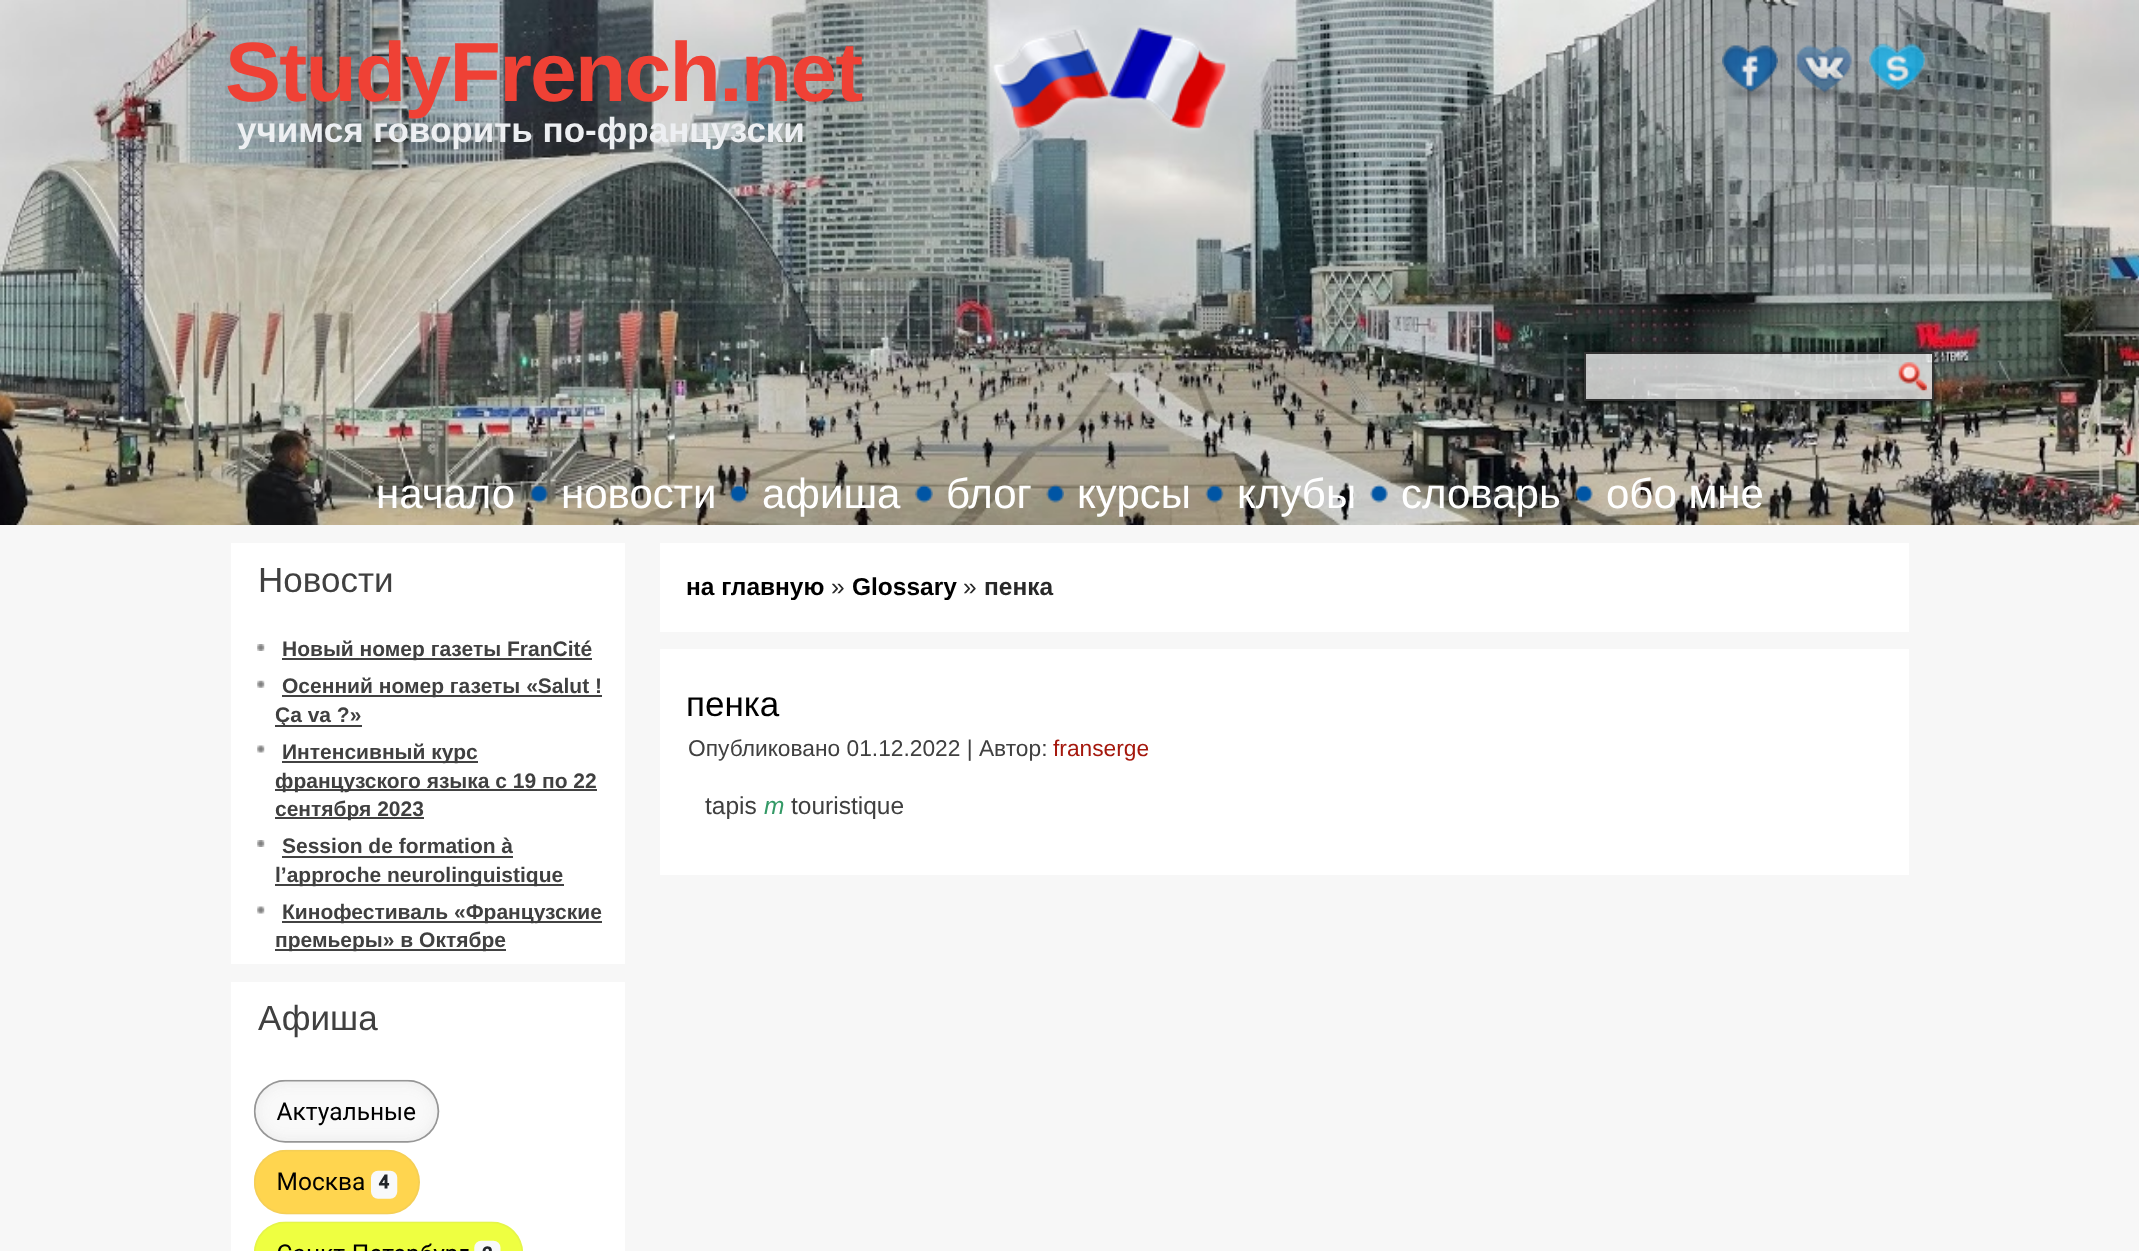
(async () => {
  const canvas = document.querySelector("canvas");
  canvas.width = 2139;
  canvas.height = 1251;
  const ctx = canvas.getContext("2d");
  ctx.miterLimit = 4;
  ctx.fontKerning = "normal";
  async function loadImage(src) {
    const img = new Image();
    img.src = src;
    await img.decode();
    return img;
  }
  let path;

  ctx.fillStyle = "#f7f7f7";
  ctx.fillRect(0, 0, 2139, 1251);
  ctx.drawImage(await loadImage("img/1.png"), 0, 0, 2139, 525);
  ctx.drawImage(await loadImage("img/2.png"), 989, 25, 241, 109);
  ctx.drawImage(await loadImage("img/3.png"), 1722, 45, 56, 55);
  ctx.drawImage(await loadImage("img/4.png"), 1795, 45, 57, 54);
  ctx.drawImage(await loadImage("img/5.png"), 1869, 43, 56, 55);
  ctx.save();
  path = new Path2D("M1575 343H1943V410H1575ZM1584 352H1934V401H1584Z");
  ctx.clip(path, "evenodd");
  ctx.fillStyle = "rgba(0, 0, 0, 0.37)";
  ctx.filter = "blur(2px)";
  ctx.beginPath();
  ctx.rect(1582, 350, 354, 53);
  ctx.fill();
  ctx.filter = "none";
  ctx.restore();
  ctx.fillStyle = "rgba(250, 250, 250, 0.75)";
  ctx.fillRect(1584, 352, 350, 49);
  ctx.strokeStyle = "rgba(0, 0, 0, 0.75)";
  ctx.lineWidth = 2;
  ctx.strokeRect(1585, 353, 348, 47);
  ctx.drawImage(await loadImage("img/6.png"), 1898, 362, 29, 29);
  ctx.drawImage(await loadImage("img/7.png"), 530, 484, 18, 19);
  ctx.drawImage(await loadImage("img/8.png"), 729, 484, 19, 19);
  ctx.drawImage(await loadImage("img/9.png"), 915, 484, 18, 19);
  ctx.drawImage(await loadImage("img/10.png"), 1046, 484, 18, 19);
  ctx.drawImage(await loadImage("img/11.png"), 1205, 484, 19, 19);
  ctx.drawImage(await loadImage("img/12.png"), 1370, 484, 18, 19);
  ctx.drawImage(await loadImage("img/13.png"), 1575, 484, 18, 19);
  ctx.fillStyle = "#ffffff";
  ctx.fillRect(231, 543, 394, 421);
  ctx.drawImage(await loadImage("img/14.png"), 257, 644, 8, 7);
  ctx.fillStyle = "#424242";
  ctx.fillRect(282, 658, 310, 2);
  ctx.drawImage(await loadImage("img/15.png"), 257, 680, 8, 8);
  ctx.fillRect(282, 695, 320, 2);
  ctx.fillRect(275, 725, 87, 2);
  ctx.drawImage(await loadImage("img/16.png"), 257, 745, 8, 8);
  for (const [x, y, w, h, color] of [
    [282, 761, 196, 2, "#424242"],
    [275, 789, 322, 2, "#424242"],
    [275, 817, 149, 2, "#424242"],
  ]) {
    ctx.fillStyle = color;
    ctx.fillRect(x, y, w, h);
  }
  ctx.drawImage(await loadImage("img/14.png"), 257, 840, 8, 7);
  ctx.fillRect(282, 856, 231, 2);
  ctx.fillRect(275, 884, 289, 2);
  ctx.drawImage(await loadImage("img/16.png"), 257, 906, 8, 8);
  for (const [x, y, w, h, color] of [
    [282, 921, 320, 2, "#424242"],
    [275, 949, 231, 2, "#424242"],
    [231, 982, 394, 269, "#ffffff"],
  ]) {
    ctx.fillStyle = color;
    ctx.fillRect(x, y, w, h);
  }
  ctx.drawImage(await loadImage("img/17.png"), 253, 1079, 270, 172);
  ctx.fillRect(660, 543, 1249, 89);
  ctx.fillRect(660, 649, 1249, 226);
  ctx.letterSpacing = "-1.75px";
  ctx.font = "bold 84px Liberation Sans";
  ctx.fillStyle = "#ef4135";
  ctx.fillText("StudyFrench.net", 225, 101);
  ctx.letterSpacing = "0px";
  ctx.font = "bold 35px Liberation Sans";
  ctx.fillStyle = "#edeff2";
  ctx.fillText("учимся говорить по-французски", 237, 142);
  ctx.font = "42px Liberation Sans";
  ctx.fillStyle = "#ffffff";
  for (const [text, x, y] of [
    ["начало", 376, 508],
    ["новости", 561, 508],
    ["афиша", 762, 508],
    ["блог", 946, 508],
    ["курсы", 1077, 508],
    ["клубы", 1237, 508],
    ["словарь", 1401, 508],
    ["обо мне", 1606, 508],
  ]) {
    ctx.fillText(text, x, y);
  }
  ctx.font = "35px Liberation Sans";
  ctx.fillStyle = "#404040";
  ctx.fillText("Новости", 258, 592);
  ctx.font = "bold 21px Liberation Sans";
  for (const [text, x, y] of [
    ["Новый номер газеты FranCité", 282, 656],
    ["Осенний номер газеты «Salut !", 282, 693],
    ["Ça va ?»", 275, 722],
    ["Интенсивный курс", 282, 759],
    ["французского языка с 19 по 22", 275, 788],
    ["сентября 2023", 275, 816],
    ["Session de formation à", 282, 853],
    ["l’approche neurolinguistique", 275, 882],
    ["Кинофестиваль «Французские", 282, 919],
    ["премьеры» в Октябре", 275, 947],
  ]) {
    ctx.fillText(text, x, y);
  }
  ctx.font = "35px Liberation Sans";
  ctx.fillText("Афиша", 258, 1030);
  ctx.font = "bold 24.5px Liberation Sans";
  ctx.fillStyle = "#000000";
  ctx.fillText("на главную", 686, 595);
  ctx.font = "24.5px Liberation Sans";
  ctx.fillStyle = "#292929";
  ctx.fillText("»", 831, 595);
  ctx.font = "bold 24.5px Liberation Sans";
  ctx.fillStyle = "#000000";
  ctx.fillText("Glossary", 852, 595);
  ctx.font = "24.5px Liberation Sans";
  ctx.fillStyle = "#292929";
  ctx.fillText("»", 963, 595);
  ctx.font = "bold 24.5px Liberation Sans";
  ctx.fillText("пенка", 984, 595);
  ctx.font = "35px Liberation Sans";
  ctx.fillStyle = "#000000";
  ctx.fillText("пенка", 686, 716);
  ctx.font = "22.75px Liberation Sans";
  ctx.fillStyle = "#404040";
  ctx.fillText("Опубликовано 01.12.2022 | Автор:", 688, 756);
  ctx.fillStyle = "#a5180d";
  ctx.fillText("franserge", 1053, 756);
  ctx.font = "24.5px Liberation Sans";
  ctx.fillStyle = "#404040";
  ctx.fillText("tapis", 705, 814);
  ctx.font = "italic 24.5px Liberation Sans";
  ctx.fillStyle = "#339966";
  ctx.fillText("m", 764, 814);
  ctx.font = "24.5px Liberation Sans";
  ctx.fillStyle = "#404040";
  ctx.fillText("touristique", 791, 814);
})();
